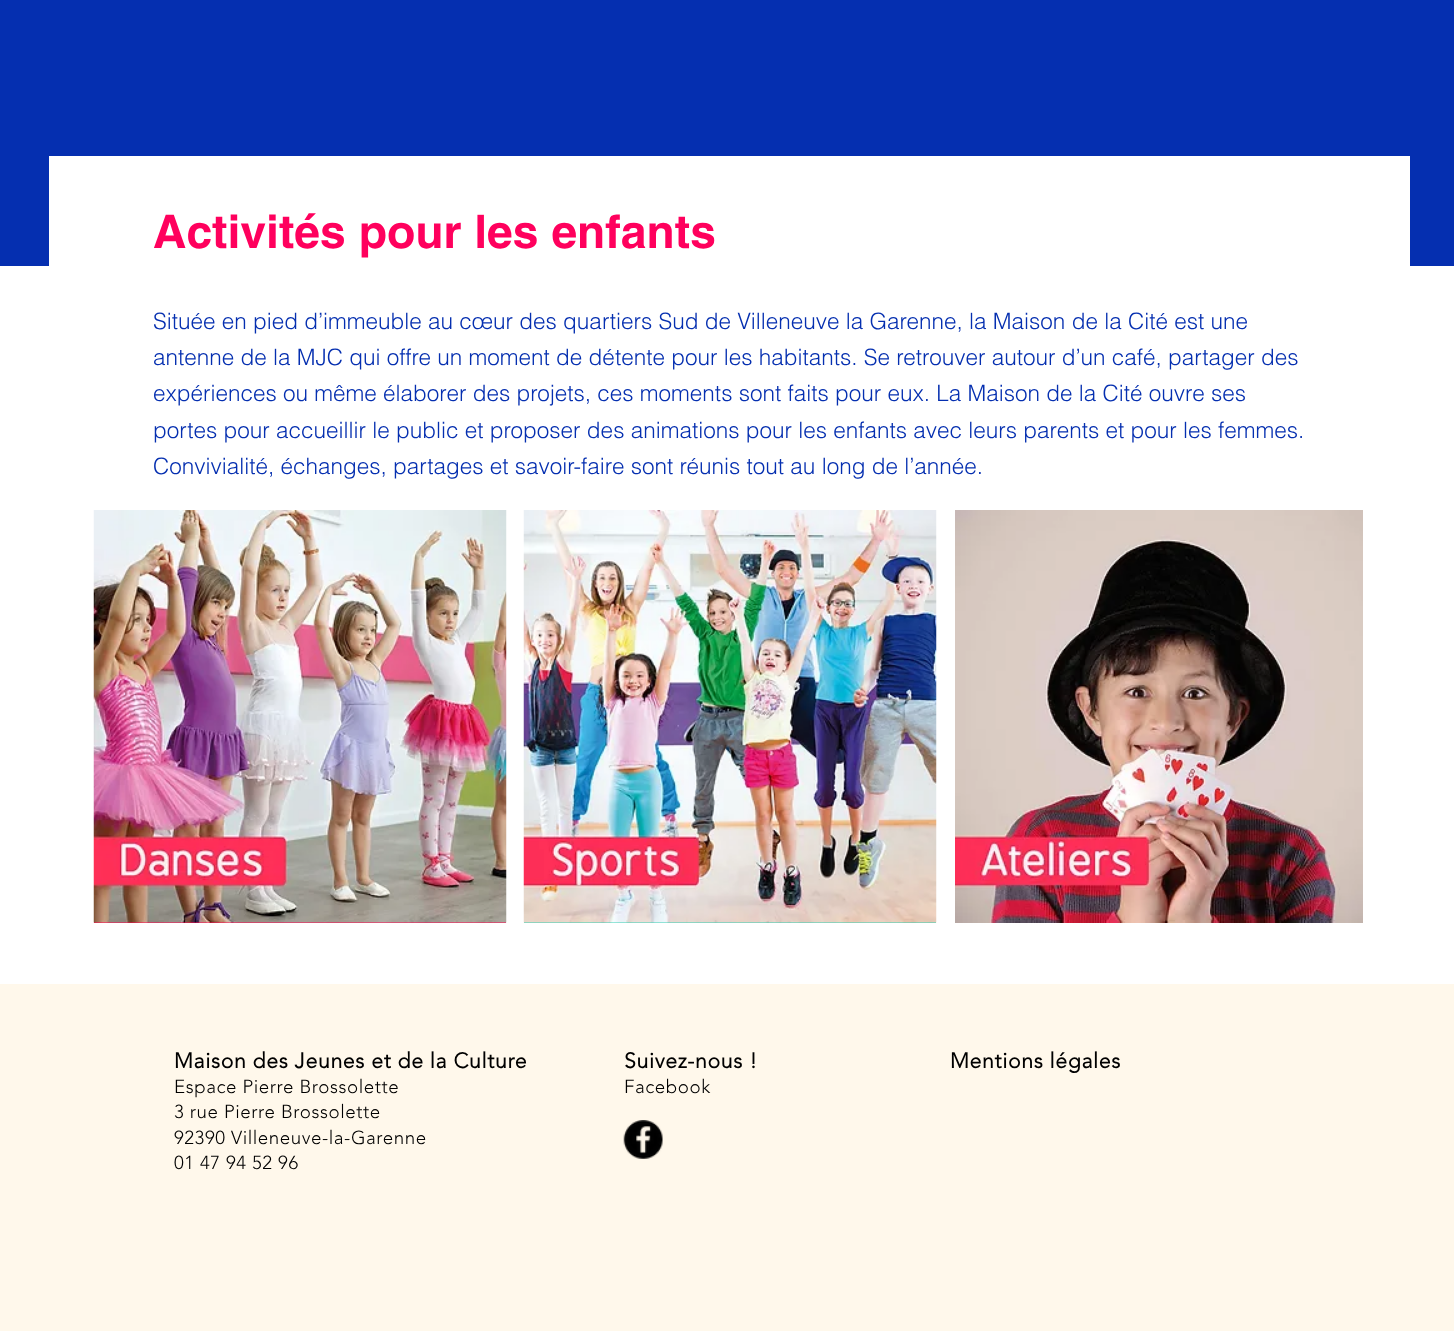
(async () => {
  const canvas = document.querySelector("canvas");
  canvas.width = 1454;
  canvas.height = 1331;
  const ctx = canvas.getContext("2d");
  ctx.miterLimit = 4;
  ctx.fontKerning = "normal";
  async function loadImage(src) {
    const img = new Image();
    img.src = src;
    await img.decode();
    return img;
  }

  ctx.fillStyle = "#ffffff";
  ctx.fillRect(0, 0, 1454, 1331);
  for (const [x, y, w, h, color] of [
    [0, 0, 1454, 266, "#052fb0"],
    [49, 156, 1361, 110, "#ffffff"],
    [94, 922, 412, 1, "#ff0852"],
  ]) {
    ctx.fillStyle = color;
    ctx.fillRect(x, y, w, h);
  }
  ctx.drawImage(await loadImage("img/1.png"), 93, 510, 414, 413);
  ctx.fillStyle = "#36d1b5";
  ctx.fillRect(524, 922, 412, 1);
  ctx.drawImage(await loadImage("img/2.png"), 523, 510, 414, 413);
  ctx.drawImage(await loadImage("img/3.png"), 955, 510, 408, 413);
  ctx.fillStyle = "#fff8eb";
  ctx.fillRect(0, 984, 1454, 347);
  ctx.drawImage(await loadImage("img/4.png"), 623, 1120, 40, 39);
  ctx.font = "bold 46.25px helvetica";
  ctx.fillStyle = "#ff005d";
  ctx.fillText("Activités pour les enfants", 153, 248);
  ctx.font = "300 22.5px helvetica";
  ctx.fillStyle = "#052fb0";
  for (const [text, x, y] of [
    ["Située en pied d’immeuble au cœur des quartiers Sud de Villeneuve la Garenne, la Maison de la Cité est une", 153, 329],
    ["antenne de la MJC qui offre un moment de détente pour les habitants. Se retrouver autour d’un café, partager des", 153, 365],
    ["expériences ou même élaborer des projets, ces moments sont faits pour eux. La Maison de la Cité ouvre ses", 153, 401],
    ["portes pour accueillir le public et proposer des animations pour les enfants avec leurs parents et pour les femmes.", 153, 438],
    ["Convivialité, échanges, partages et savoir-faire sont réunis tout au long de l’année.", 153, 474],
  ]) {
    ctx.fillText(text, x, y);
  }
  ctx.letterSpacing = "0.65px";
  ctx.font = "bold 21.25px 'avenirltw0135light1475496'";
  ctx.fillStyle = "#000000";
  ctx.fillText("Maison des Jeunes et de la Culture", 174, 1068);
  ctx.letterSpacing = "0.55px";
  ctx.font = "300 18.75px 'avenirltw0135light1475496'";
  for (const [text, x, y] of [
    ["Espace Pierre Brossolette", 174, 1093],
    ["3 rue Pierre Brossolette", 174, 1118],
    ["92390 Villeneuve-la-Garenne", 174, 1144],
    ["01 47 94 52 96", 174, 1169],
  ]) {
    ctx.fillText(text, x, y);
  }
  ctx.letterSpacing = "0.65px";
  ctx.font = "bold 21.25px 'avenirltw0135light1475496'";
  ctx.fillText("Suivez-nous !", 624, 1068);
  ctx.letterSpacing = "0.55px";
  ctx.font = "300 18.75px 'avenirltw0135light1475496'";
  ctx.fillText("Facebook", 624, 1093);
  ctx.letterSpacing = "0.65px";
  ctx.font = "bold 21.25px 'avenirltw0135light1475496'";
  ctx.fillText("Mentions légales", 950, 1068);
})();
